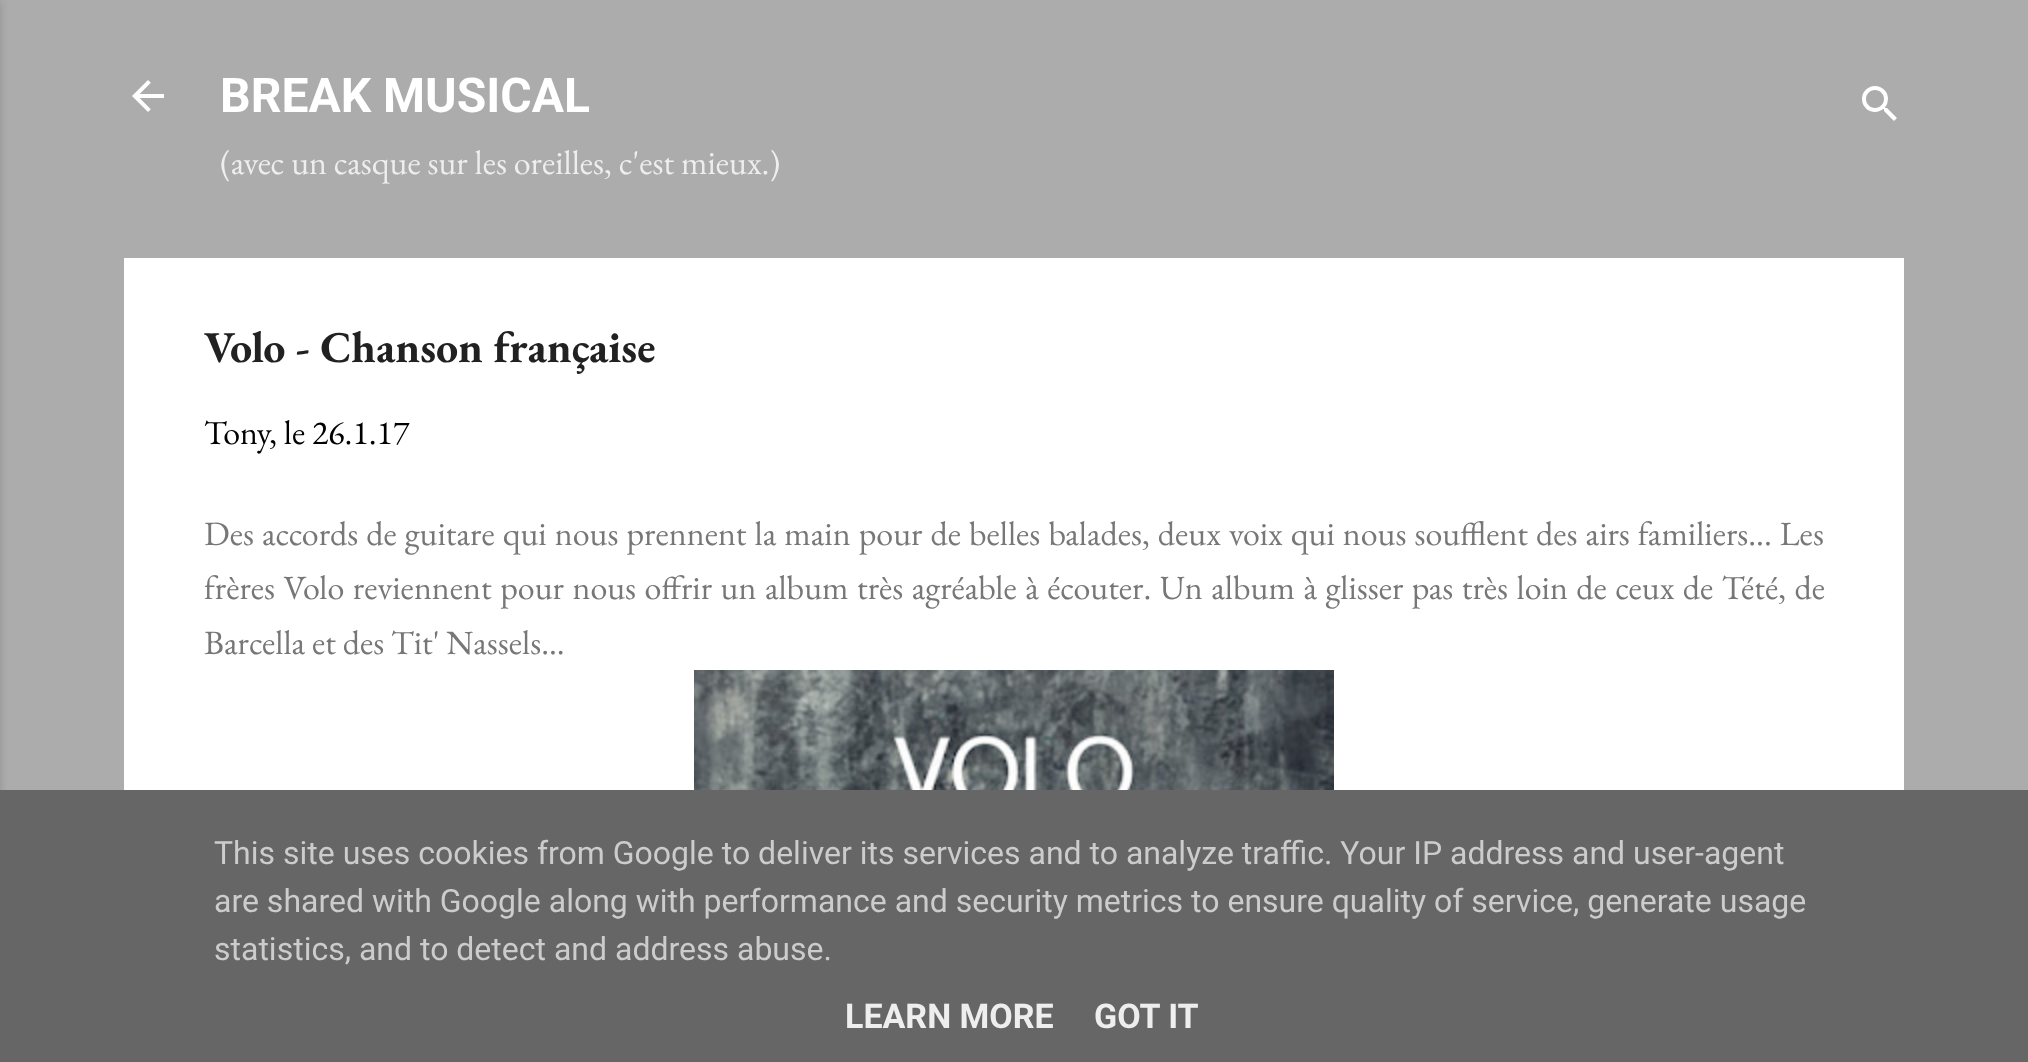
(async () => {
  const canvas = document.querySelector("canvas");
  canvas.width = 2028;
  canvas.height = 1062;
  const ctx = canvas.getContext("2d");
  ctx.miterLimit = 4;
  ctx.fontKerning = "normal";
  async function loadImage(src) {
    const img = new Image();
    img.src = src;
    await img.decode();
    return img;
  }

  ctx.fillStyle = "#acacac";
  ctx.fillRect(0, 0, 2028, 1062);
  ctx.fillStyle = "rgba(0, 0, 0, 0.1)";
  ctx.filter = "blur(3px)";
  ctx.beginPath();
  ctx.rect(-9, 2, 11, 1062);
  ctx.fill();
  ctx.filter = "none";
  ctx.drawImage(await loadImage("img/1.png"), 132, 80, 32, 32);
  ctx.drawImage(await loadImage("img/2.png"), 1862, 86, 35, 35);
  ctx.fillStyle = "#ffffff";
  ctx.fillRect(124, 258, 1780, 532);
  ctx.drawImage(await loadImage("img/3.png"), 694, 670, 640, 120);
  ctx.fillStyle = "#666666";
  ctx.fillRect(0, 790, 2028, 272);
  ctx.font = "bold 48px Roboto";
  ctx.fillStyle = "#ffffff";
  ctx.fillText("BREAK MUSICAL", 220, 112);
  ctx.font = "34px EB Garamond";
  ctx.fillStyle = "#eeeeee";
  ctx.fillText("(avec un casque sur les oreilles, c'est mieux.)", 220, 174);
  ctx.font = "bold 44px EB Garamond";
  ctx.fillStyle = "#212121";
  ctx.fillText("Volo - Chanson française", 204, 362);
  ctx.font = "34px EB Garamond";
  ctx.fillStyle = "#000000";
  ctx.fillText("Tony, le 26.1.17", 204, 444);
  ctx.wordSpacing = "1.25px";
  ctx.fillStyle = "#777777";
  ctx.fillText("Des accords de guitare qui nous prennent la main pour de belles balades, deux voix qui nous soufflent des airs familiers... Les", 204, 545);
  ctx.wordSpacing = "1.7px";
  ctx.fillText("frères Volo reviennent pour nous offrir un album très agréable à écouter. Un album à glisser pas très loin de ceux de Tété, de", 204, 599);
  ctx.wordSpacing = "0px";
  ctx.fillText("Barcella et des Tit' Nassels...", 204, 654);
  ctx.font = "32px Roboto";
  ctx.fillStyle = "#cccccc";
  for (const [text, x, y] of [
    ["This site uses cookies from Google to deliver its services and to analyze traffic. Your IP address and user-agent", 214, 864],
    ["are shared with Google along with performance and security metrics to ensure quality of service, generate usage", 214, 912],
    ["statistics, and to detect and address abuse.", 214, 960],
  ]) {
    ctx.fillText(text, x, y);
  }
  ctx.font = "bold 34px Roboto";
  ctx.fillStyle = "#eeeeee";
  ctx.fillText("LEARN MORE", 845, 1028);
  ctx.fillText("GOT IT", 1094, 1028);
})();
